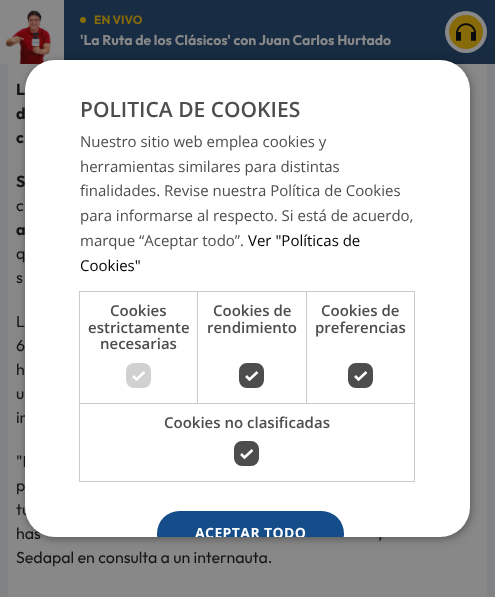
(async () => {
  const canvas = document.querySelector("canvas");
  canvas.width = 495;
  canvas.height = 597;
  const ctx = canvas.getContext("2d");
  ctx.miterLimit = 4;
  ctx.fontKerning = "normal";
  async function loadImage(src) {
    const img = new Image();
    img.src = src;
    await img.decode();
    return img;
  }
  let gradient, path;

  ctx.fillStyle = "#818283";
  ctx.fillRect(0, 0, 495, 597);
  gradient = ctx.createLinearGradient(248, 0, 248, 64);
  gradient.addColorStop(0.59, "#182c43");
  gradient.addColorStop(1, "#172a3f");
  ctx.fillStyle = gradient;
  ctx.fillRect(64, 0, 431, 64);
  ctx.drawImage(await loadImage("img/1.png"), 0, 0, 64, 64);
  ctx.fillStyle = "#876a09";
  ctx.beginPath();
  ctx.arc(83, 20, 3, 0, Math.PI * 2);
  ctx.fill();
  ctx.fillStyle = "#888888";
  ctx.beginPath();
  ctx.arc(466, 32, 21, 0, Math.PI * 2);
  ctx.fill();
  ctx.fillStyle = "#876a09";
  ctx.beginPath();
  ctx.arc(466, 32, 17, 0, Math.PI * 2);
  ctx.fill();
  ctx.drawImage(await loadImage("img/2.png"), 456, 23, 20, 18);
  ctx.fillStyle = "#888888";
  ctx.fillRect(8, 64, 479, 533);
  ctx.fillStyle = "rgba(0, 0, 0, 0.35)";
  ctx.filter = "blur(4px)";
  ctx.beginPath();
  ctx.roundRect(26, 62, 445, 477, 30);
  ctx.fill();
  ctx.filter = "none";
  ctx.font = "bold 12px Outfit";
  ctx.fillStyle = "#876a09";
  ctx.fillText("EN VIVO", 94, 24);
  ctx.font = "bold 14px Outfit";
  ctx.fillStyle = "#888888";
  ctx.fillText("'La Ruta de los Clásicos' con Juan Carlos Hurtado", 80, 45);
  ctx.font = "bold 16px Outfit";
  ctx.fillStyle = "#141517";
  for (const [text, x, y] of [
    ["L", 16, 95],
    ["d", 16, 119],
    ["c", 16, 143],
    ["S", 16, 187],
  ]) {
    ctx.fillText(text, x, y);
  }
  ctx.font = "16px Outfit";
  ctx.fillText("c", 16, 211);
  ctx.font = "bold 16px Outfit";
  ctx.fillText("a", 16, 235);
  ctx.font = "16px Outfit";
  for (const [text, x, y] of [
    ["q", 16, 259],
    ["s", 16, 283],
    ["L", 16, 327],
    ["6", 16, 351],
    ["h", 16, 375],
    ["u", 16, 399],
    ["in", 16, 423],
    ["\"L", 16, 467],
    ["p", 16, 491],
    ["tu", 16, 515],
    ["has", 16, 539],
    [",", 378, 539],
    ["Sedapal en consulta a un internauta.", 16, 563],
  ]) {
    ctx.fillText(text, x, y);
  }
  ctx.fillStyle = "#ffffff";
  ctx.beginPath();
  ctx.roundRect(25, 60, 445, 477, 30);
  ctx.fill();
  ctx.font = "600 21px Open Sans";
  ctx.fillStyle = "#4d4d4d";
  ctx.fillText("POLITICA DE COOKIES", 80, 117);
  ctx.font = "15px Open Sans";
  for (const [text, x, y] of [
    ["Nuestro sitio web emplea cookies y", 80, 147],
    ["herramientas similares para distintas", 80, 172],
    ["finalidades. Revise nuestra Política de Cookies", 80, 196],
    ["para informarse al respecto. Si está de acuerdo,", 80, 221],
    ["marque “Aceptar todo”.", 80, 246],
  ]) {
    ctx.fillText(text, x, y);
  }
  ctx.fillStyle = "#000000";
  ctx.fillText("Ver \"Políticas de", 248, 246);
  ctx.fillText("Cookies\"", 80, 271);
  ctx.strokeStyle = "#cacaca";
  ctx.strokeRect(79.5, 291.5, 118, 112);
  ctx.font = "600 15px Open Sans";
  ctx.fillStyle = "#4d4d4d";
  for (const [text, x, y] of [
    ["Cookies", 110, 316],
    ["estrictamente", 88, 333],
    ["necesarias", 100, 349],
  ]) {
    ctx.fillText(text, x, y);
  }
  ctx.fillStyle = "#d1d1d1";
  ctx.beginPath();
  ctx.roundRect(126, 363, 25, 25, 8);
  ctx.fill();
  path = new Path2D("M133 376L136.5 379.5L144.5 372");
  ctx.strokeStyle = "#ffffff";
  ctx.lineWidth = 2.6;
  ctx.stroke(path);
  ctx.strokeStyle = "#cacaca";
  ctx.lineWidth = 1;
  ctx.strokeRect(197.5, 291.5, 109, 112);
  ctx.fillStyle = "#4d4d4d";
  ctx.fillText("Cookies de", 213, 316);
  ctx.fillText("rendimiento", 207, 333);
  ctx.beginPath();
  ctx.roundRect(240, 364, 23, 23, 7);
  ctx.fill();
  ctx.strokeStyle = "#4d4d4d";
  ctx.lineWidth = 2;
  ctx.stroke();
  path = new Path2D("M246 376L249.5 379.5L257.5 372");
  ctx.strokeStyle = "#ffffff";
  ctx.lineWidth = 2.6;
  ctx.stroke(path);
  ctx.strokeStyle = "#cacaca";
  ctx.lineWidth = 1;
  ctx.strokeRect(306.5, 291.5, 108, 112);
  ctx.fillText("Cookies de", 321, 316);
  ctx.fillText("preferencias", 315, 333);
  ctx.beginPath();
  ctx.roundRect(349, 364, 23, 23, 7);
  ctx.fill();
  ctx.strokeStyle = "#4d4d4d";
  ctx.lineWidth = 2;
  ctx.stroke();
  path = new Path2D("M355 376L358.5 379.5L366.5 372");
  ctx.strokeStyle = "#ffffff";
  ctx.lineWidth = 2.6;
  ctx.stroke(path);
  ctx.strokeStyle = "#cacaca";
  ctx.lineWidth = 1;
  ctx.strokeRect(79.5, 403.5, 335, 78);
  ctx.fillText("Cookies no clasificadas", 164, 428);
  ctx.beginPath();
  ctx.roundRect(235, 442, 23, 23, 7);
  ctx.fill();
  ctx.strokeStyle = "#4d4d4d";
  ctx.lineWidth = 2;
  ctx.stroke();
  path = new Path2D("M241 454L244.5 457.5L252.5 450");
  ctx.strokeStyle = "#ffffff";
  ctx.lineWidth = 2.6;
  ctx.stroke(path);
  ctx.save();
  ctx.beginPath();
  ctx.roundRect(25, 60, 445, 477, 30);
  ctx.clip();
  ctx.fillStyle = "#144d89";
  ctx.beginPath();
  ctx.roundRect(157, 511, 187, 45, 22.5);
  ctx.fill();
  ctx.letterSpacing = "0.4px";
  ctx.font = "bold 14px Open Sans";
  ctx.fillStyle = "#ffffff";
  ctx.fillText("ACEPTAR TODO", 195, 538);
  ctx.restore();
})();
